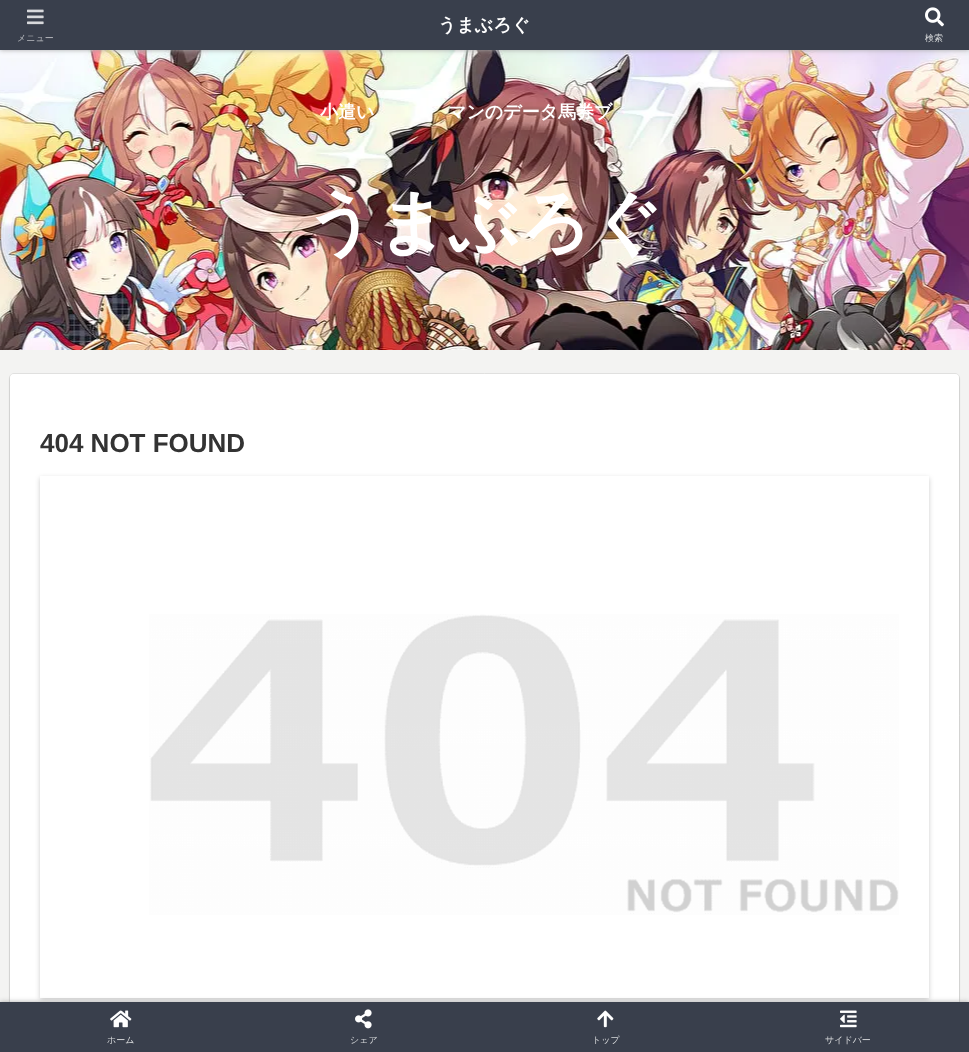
(async () => {
  const canvas = document.querySelector("canvas");
  canvas.width = 969;
  canvas.height = 1052;
  const ctx = canvas.getContext("2d");
  ctx.miterLimit = 4;
  ctx.fontKerning = "normal";
  async function loadImage(src) {
    const img = new Image();
    img.src = src;
    await img.decode();
    return img;
  }
  let path;

  ctx.fillStyle = "#f3f3f2";
  ctx.fillRect(0, 0, 969, 1052);
  ctx.drawImage(await loadImage("img/3.png"), 0, 50, 969, 300);
  ctx.fillStyle = "#a9a9a9";
  ctx.filter = "blur(2.5px)";
  ctx.beginPath();
  ctx.rect(0, 0, 969, 50);
  ctx.fill();
  ctx.filter = "none";
  ctx.fillStyle = "#393f4c";
  ctx.fillRect(0, 0, 969, 50);
  ctx.drawImage(await loadImage("img/1.png"), 27, 9, 17, 16);
  ctx.drawImage(await loadImage("img/2.png"), 925, 7, 19, 20);
  ctx.beginPath();
  ctx.roundRect(9.5, 373.5, 950, 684, 4.5);
  ctx.strokeStyle = "#e0e0df";
  ctx.stroke();
  ctx.fillStyle = "rgba(0, 0, 0, 0.16)";
  ctx.filter = "blur(1px)";
  ctx.beginPath();
  ctx.roundRect(10, 376, 949, 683, 4);
  ctx.fill();
  ctx.filter = "none";
  ctx.fillStyle = "#ffffff";
  ctx.beginPath();
  ctx.roundRect(10, 374, 949, 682, 4);
  ctx.fill();
  ctx.save();
  path = new Path2D("M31 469H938V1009H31ZM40 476H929V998H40Z");
  ctx.clip(path, "evenodd");
  ctx.fillStyle = "rgba(0, 0, 0, 0.2)";
  ctx.filter = "blur(2.5px)";
  ctx.beginPath();
  ctx.rect(40, 478, 889, 522);
  ctx.fill();
  ctx.filter = "none";
  ctx.restore();
  ctx.drawImage(await loadImage("img/4.png"), 149, 614, 750, 301);
  ctx.fillStyle = "#a9a9a9";
  ctx.filter = "blur(2.5px)";
  ctx.beginPath();
  ctx.rect(0, 1002, 969, 50);
  ctx.fill();
  ctx.filter = "none";
  ctx.fillStyle = "#393f4c";
  ctx.fillRect(0, 1002, 969, 50);
  ctx.drawImage(await loadImage("img/5.png"), 110, 1010, 22, 18);
  ctx.drawImage(await loadImage("img/6.png"), 355, 1009, 17, 20);
  ctx.drawImage(await loadImage("img/7.png"), 597, 1010, 17, 18);
  ctx.drawImage(await loadImage("img/8.png"), 840, 1010, 17, 18);
  ctx.font = "bold 18px WenQuanYi Zen Hei";
  ctx.fillStyle = "#ffffff";
  ctx.fillText("うまぶろぐ", 438, 31);
  ctx.font = "500 9px WenQuanYi Zen Hei";
  ctx.fillStyle = "#b8babf";
  ctx.fillText("メニュー", 17, 41);
  ctx.fillStyle = "#d7d9db";
  ctx.fillText("検索", 925, 41);
  ctx.font = "bold 18px WenQuanYi Zen Hei";
  ctx.fillStyle = "#ffffff";
  ctx.fillText("小遣い", 320, 118);
  ctx.fillText("マンのデータ馬券ブ", 448, 118);
  ctx.font = "bold 70px WenQuanYi Zen Hei";
  ctx.fillText("うまぶろぐ", 305, 246);
  ctx.font = "bold 26px Liberation Sans";
  ctx.fillStyle = "#333333";
  ctx.fillText("404 NOT FOUND", 40, 452);
  ctx.font = "500 9px WenQuanYi Zen Hei";
  ctx.fillStyle = "#d7d9db";
  for (const [text, x, y] of [
    ["ホーム", 107, 1043],
    ["シェア", 350, 1043],
    ["トップ", 592, 1043],
    ["サイドバー", 825, 1043],
  ]) {
    ctx.fillText(text, x, y);
  }
})();
